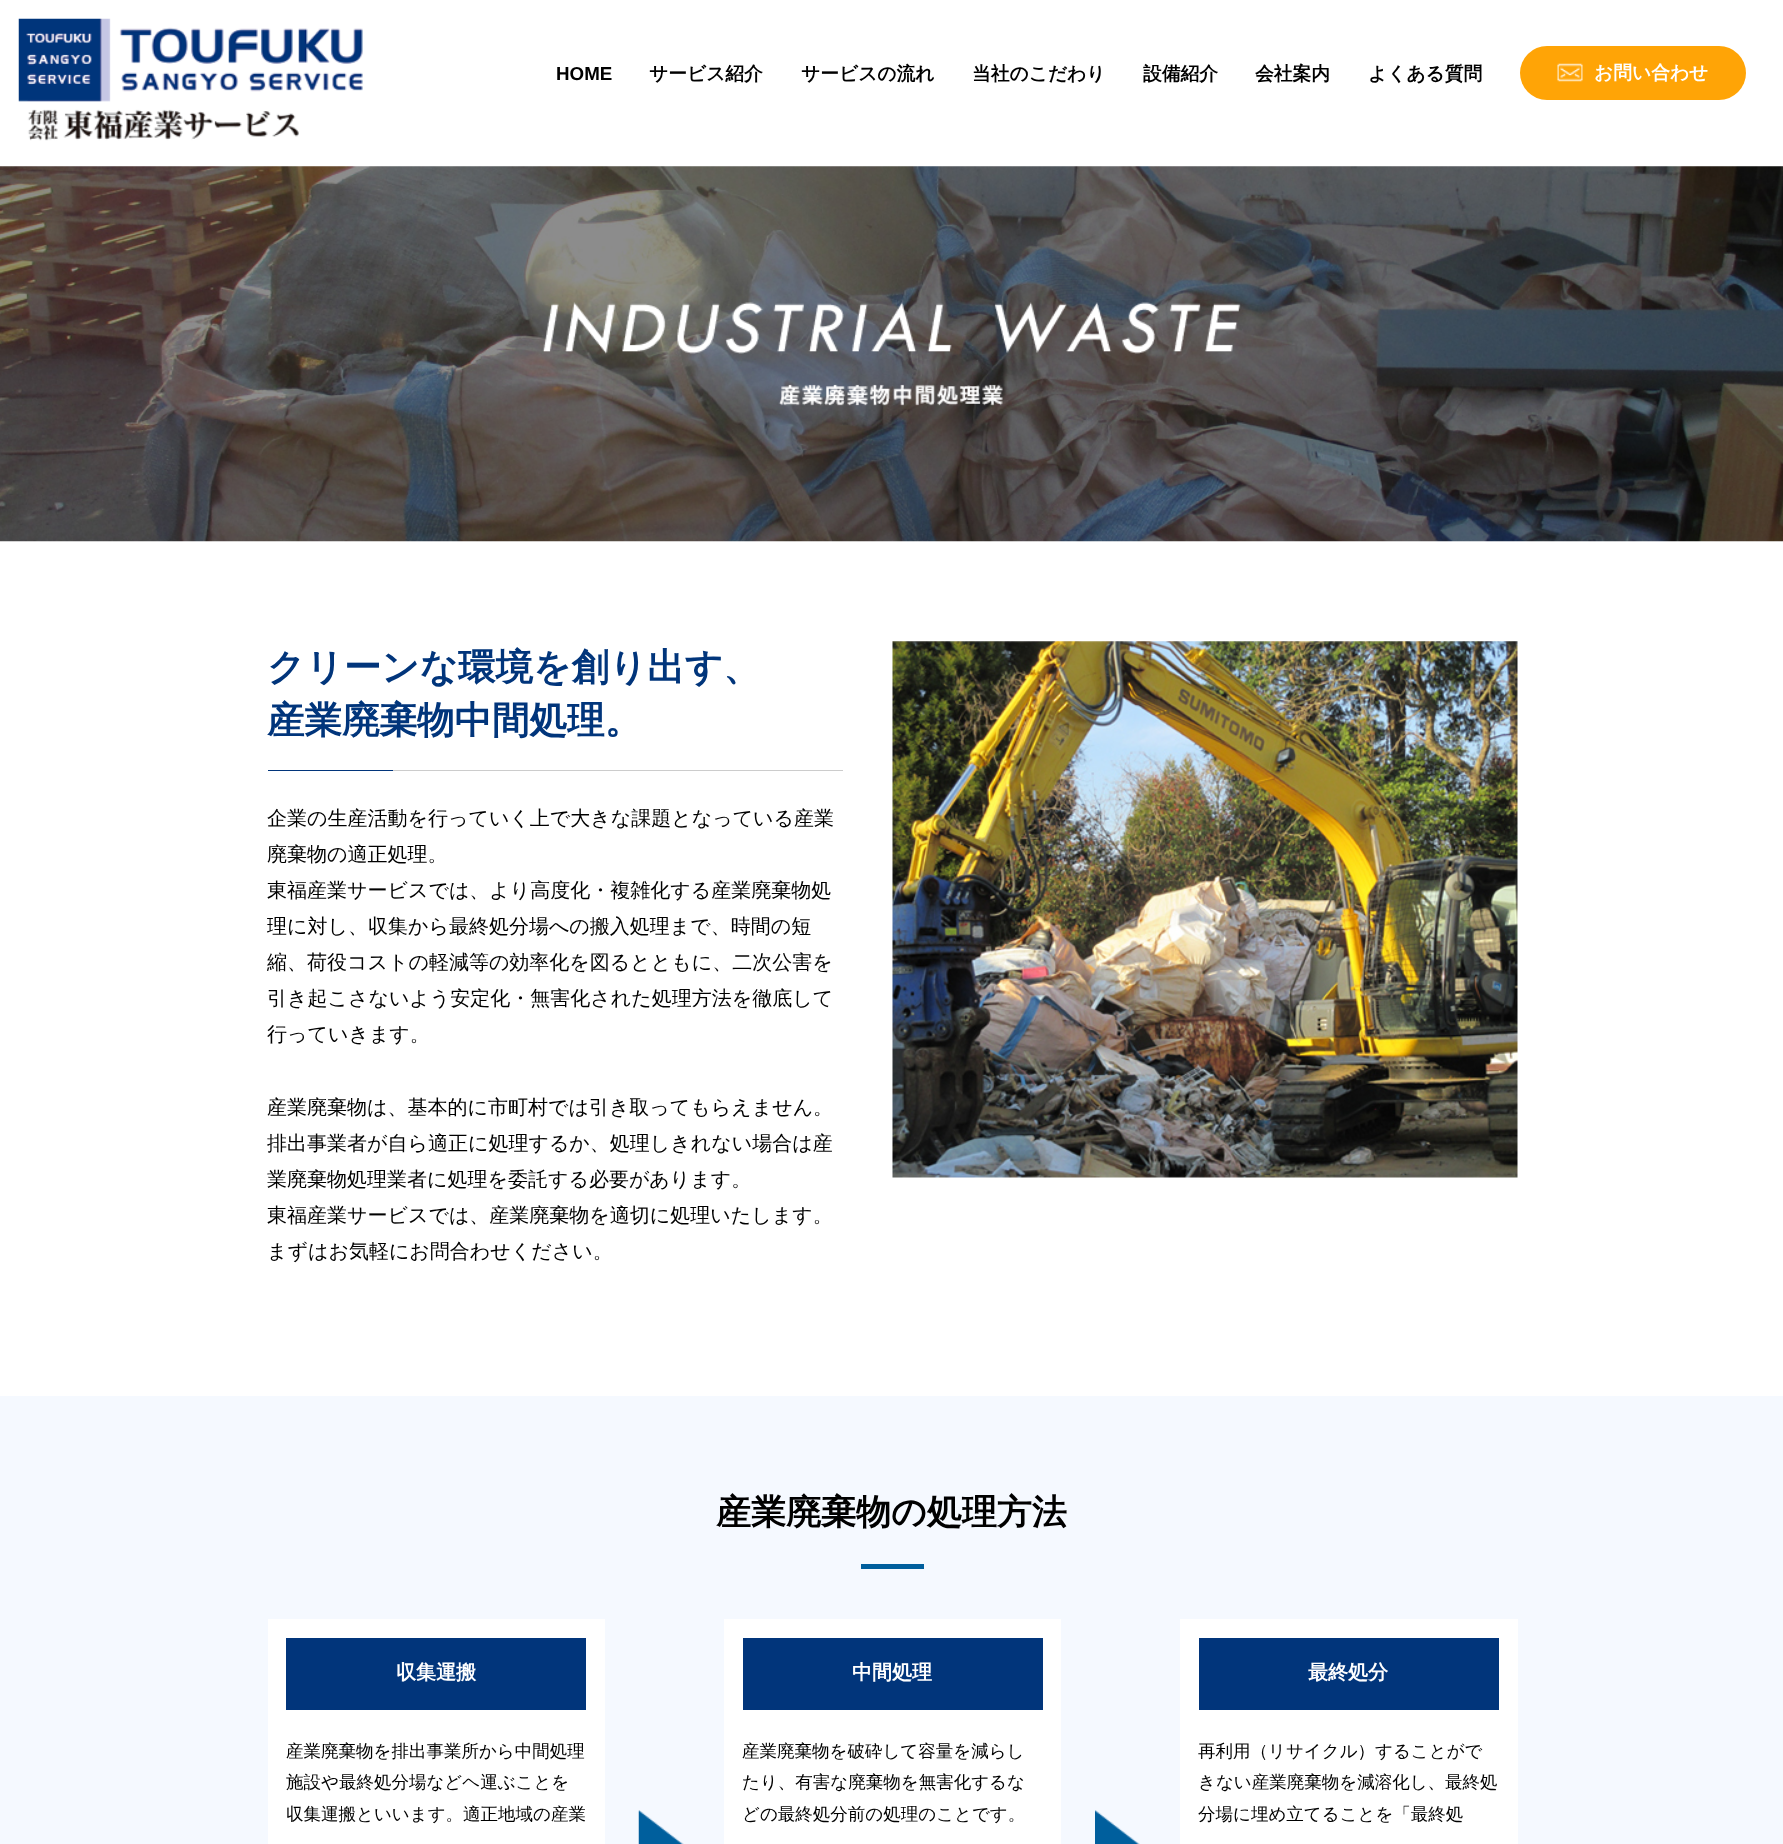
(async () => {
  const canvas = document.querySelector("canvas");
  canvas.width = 1783;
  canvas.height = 1844;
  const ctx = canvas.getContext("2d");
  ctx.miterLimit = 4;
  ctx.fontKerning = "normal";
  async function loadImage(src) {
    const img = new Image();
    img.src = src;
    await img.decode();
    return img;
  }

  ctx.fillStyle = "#ffffff";
  ctx.fillRect(0, 0, 1783, 1844);
  ctx.drawImage(await loadImage("img/1.png"), 18, 18, 345, 123);
  ctx.fillStyle = "#ffa406";
  ctx.beginPath();
  ctx.roundRect(1520, 46, 226, 54, 27);
  ctx.fill();
  ctx.drawImage(await loadImage("img/2.png"), 1557, 63, 26, 19);
  ctx.drawImage(await loadImage("img/3.png"), 0, 166, 1783, 376);
  ctx.drawImage(await loadImage("img/4.png"), 542, 302, 699, 104);
  ctx.fillStyle = "#01357b";
  ctx.fillRect(268, 770, 125, 1);
  ctx.fillStyle = "#cccccc";
  ctx.fillRect(393, 770, 450, 1);
  ctx.drawImage(await loadImage("img/5.png"), 892, 641, 626, 537);
  for (const [x, y, w, h, color] of [
    [0, 1396, 1783, 448, "#f5f9ff"],
    [861, 1564, 63, 5, "#005f9d"],
    [268, 1619, 337, 225, "#ffffff"],
    [286, 1638, 300, 72, "#01357b"],
  ]) {
    ctx.fillStyle = color;
    ctx.fillRect(x, y, w, h);
  }
  ctx.drawImage(await loadImage("img/6.png"), 638, 1810, 46, 34);
  ctx.fillStyle = "#ffffff";
  ctx.fillRect(724, 1619, 337, 225);
  ctx.fillStyle = "#01357b";
  ctx.fillRect(743, 1638, 300, 72);
  ctx.drawImage(await loadImage("img/7.png"), 1095, 1810, 45, 34);
  ctx.fillStyle = "#ffffff";
  ctx.fillRect(1180, 1619, 338, 225);
  ctx.fillStyle = "#01357b";
  ctx.fillRect(1199, 1638, 300, 72);
  ctx.font = "bold 18.75px Liberation Sans";
  ctx.fillStyle = "#000000";
  ctx.fillText("HOME", 556, 80);
  ctx.font = "bold 18.75px WenQuanYi Zen Hei";
  for (const [text, x, y] of [
    ["サービス紹介", 649, 80],
    ["サービスの流れ", 801, 80],
    ["当社のこだわり", 972, 80],
    ["設備紹介", 1143, 80],
    ["会社案内", 1255, 80],
    ["よくある質問", 1368, 80],
  ]) {
    ctx.fillText(text, x, y);
  }
  ctx.fillStyle = "#ffffff";
  ctx.fillText("お問い合わせ", 1594, 79);
  ctx.font = "bold 37.5px WenQuanYi Zen Hei";
  ctx.fillStyle = "#01357b";
  ctx.fillText("クリーンな環境を創り出す、", 267, 680);
  ctx.fillText("産業廃棄物中間処理。", 267, 733);
  ctx.font = "500 20px WenQuanYi Zen Hei";
  ctx.fillStyle = "#000000";
  for (const [text, x, y] of [
    ["企業の生産活動を行っていく上で大きな課題となっている産業", 267, 825],
    ["廃棄物の適正処理。", 267, 861],
    ["東福産業サービスでは、より高度化・複雑化する産業廃棄物処", 267, 897],
    ["理に対し、収集から最終処分場への搬入処理まで、時間の短", 267, 933],
    ["縮、荷役コストの軽減等の効率化を図るとともに、二次公害を", 267, 969],
    ["引き起こさないよう安定化・無害化された処理方法を徹底して", 267, 1005],
    ["行っていきます。", 267, 1041],
    ["産業廃棄物は、基本的に市町村では引き取ってもらえません。", 267, 1114],
    ["排出事業者が自ら適正に処理するか、処理しきれない場合は産", 267, 1150],
    ["業廃棄物処理業者に処理を委託する必要があります。", 267, 1186],
    ["東福産業サービスでは、産業廃棄物を適切に処理いたします。", 267, 1222],
    ["まずはお気軽にお問合わせください。", 267, 1258],
  ]) {
    ctx.fillText(text, x, y);
  }
  ctx.font = "bold 35px WenQuanYi Zen Hei";
  ctx.fillText("産業廃棄物の処理方法", 716, 1524);
  ctx.font = "bold 20px WenQuanYi Zen Hei";
  ctx.fillStyle = "#ffffff";
  ctx.fillText("収集運搬", 396, 1679);
  ctx.font = "500 17.5px WenQuanYi Zen Hei";
  ctx.fillStyle = "#000000";
  for (const [text, x, y] of [
    ["産業廃棄物を排出事業所から中間処理", 286, 1757],
    ["施設や最終処分場などヘ運ぶことを", 286, 1788],
    ["収集運搬といいます。適正地域の産業", 286, 1820],
  ]) {
    ctx.fillText(text, x, y);
  }
  ctx.font = "bold 20px WenQuanYi Zen Hei";
  ctx.fillStyle = "#ffffff";
  ctx.fillText("中間処理", 852, 1679);
  ctx.font = "500 17.5px WenQuanYi Zen Hei";
  ctx.fillStyle = "#000000";
  for (const [text, x, y] of [
    ["産業廃棄物を破砕して容量を減らし", 742, 1757],
    ["たり、有害な廃棄物を無害化するな", 742, 1788],
    ["どの最終処分前の処理のことです。", 742, 1820],
  ]) {
    ctx.fillText(text, x, y);
  }
  ctx.font = "bold 20px WenQuanYi Zen Hei";
  ctx.fillStyle = "#ffffff";
  ctx.fillText("最終処分", 1308, 1679);
  ctx.font = "500 17.5px WenQuanYi Zen Hei";
  ctx.fillStyle = "#000000";
  for (const [text, x, y] of [
    ["再利用（リサイクル）することがで", 1198, 1757],
    ["きない産業廃棄物を減溶化し、最終処", 1198, 1788],
    ["分場に埋め立てることを「最終処", 1198, 1820],
  ]) {
    ctx.fillText(text, x, y);
  }
})();
